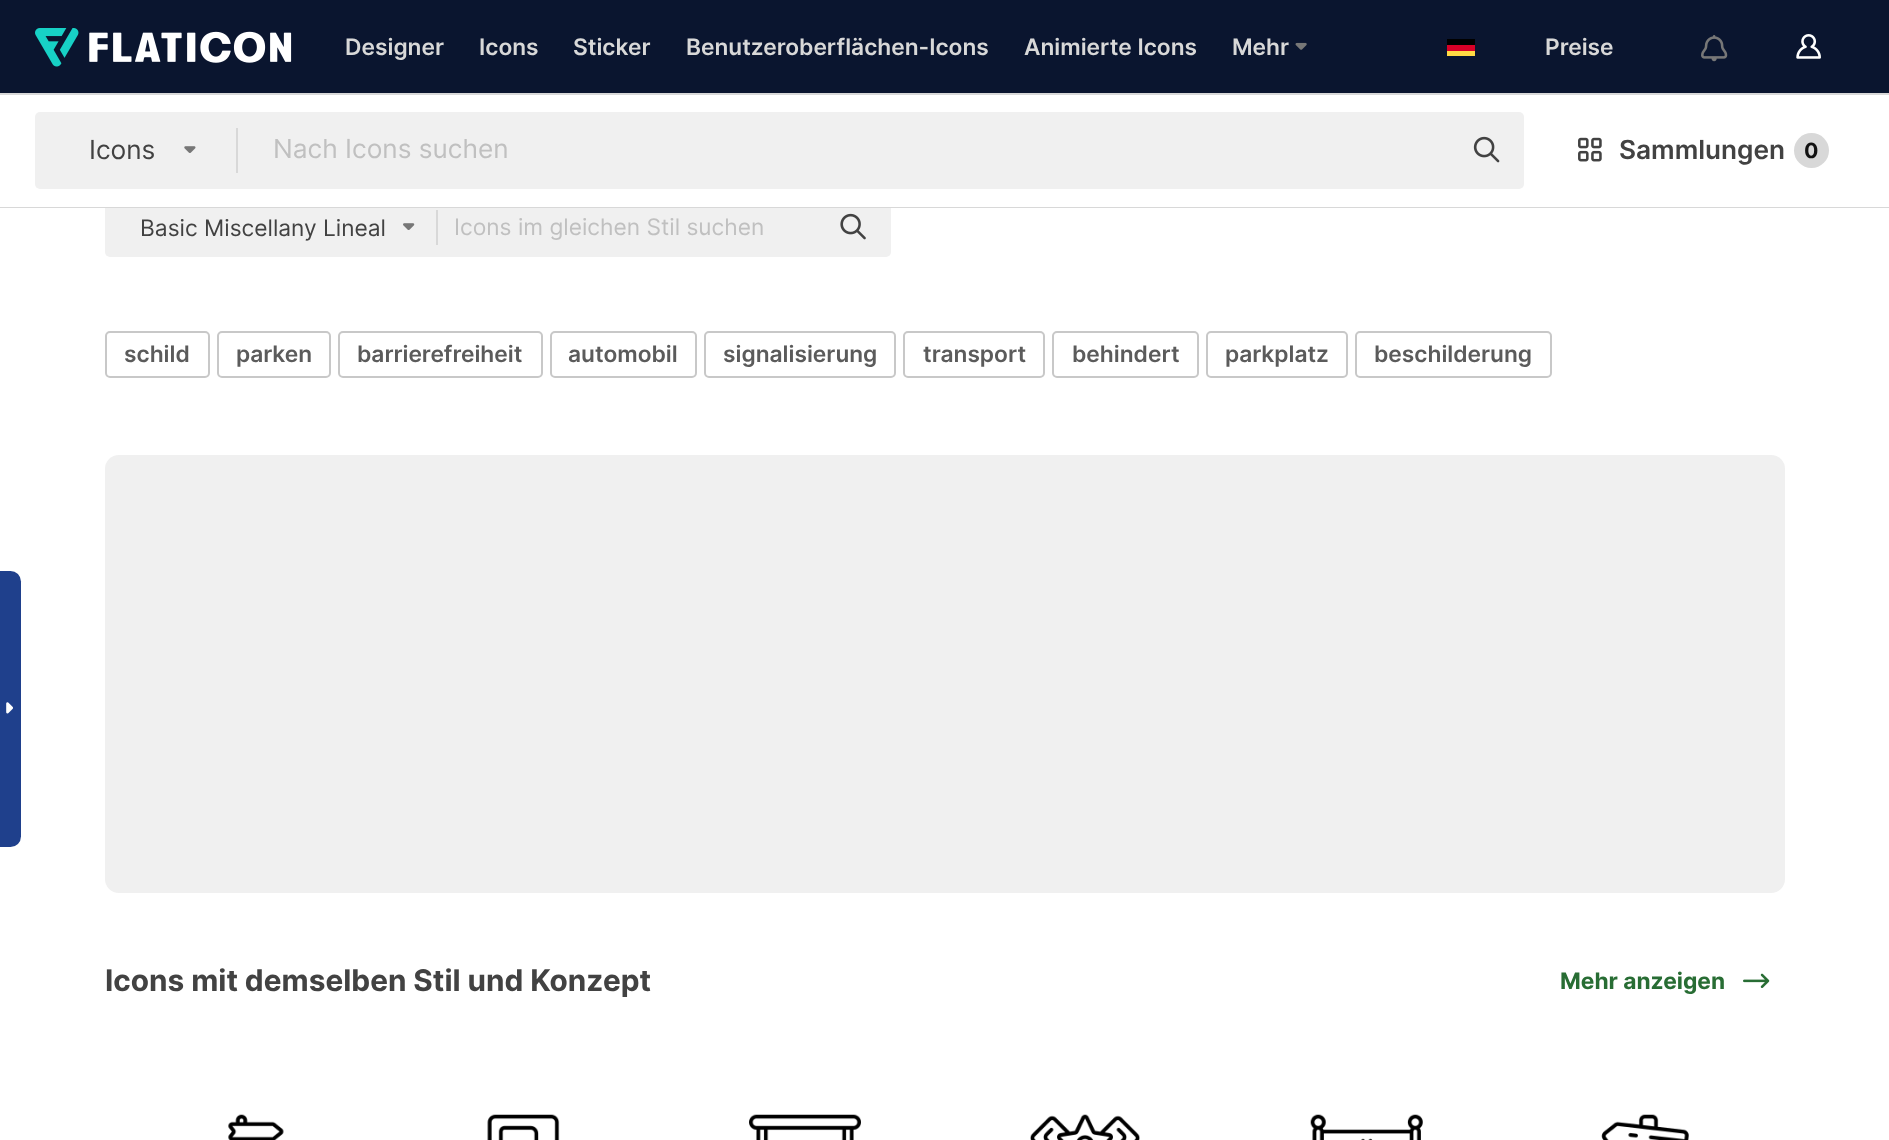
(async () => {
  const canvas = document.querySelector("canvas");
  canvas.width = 1889;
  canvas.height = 1140;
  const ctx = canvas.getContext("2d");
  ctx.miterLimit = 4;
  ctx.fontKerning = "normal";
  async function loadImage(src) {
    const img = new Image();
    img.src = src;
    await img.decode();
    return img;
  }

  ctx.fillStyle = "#ffffff";
  ctx.fillRect(0, 0, 1889, 1140);
  ctx.fillStyle = "#1f408c";
  ctx.beginPath();
  ctx.roundRect(0, 571, 21, 276, [0, 10.5, 10.5, 0]);
  ctx.fill();
  ctx.drawImage(await loadImage("img/1.png"), 6, 702, 7, 12);
  ctx.fillStyle = "#0a152f";
  ctx.fillRect(0, 0, 1889, 93);
  ctx.drawImage(await loadImage("img/2.png"), 35, 28, 257, 39);
  ctx.drawImage(await loadImage("img/3.png"), 1295, 42, 12, 8);
  for (const [x, y, w, h, color] of [
    [1447, 45, 28, 6, "#d80027"],
    [1447, 39, 28, 6, "#000000"],
    [1447, 51, 28, 5, "#ffda44"],
  ]) {
    ctx.fillStyle = color;
    ctx.fillRect(x, y, w, h);
  }
  ctx.drawImage(await loadImage("img/4.png"), 1701, 35, 27, 27);
  ctx.drawImage(await loadImage("img/5.png"), 1796, 34, 25, 25);
  ctx.fillStyle = "#f0f0f0";
  ctx.beginPath();
  ctx.roundRect(105, 198, 786, 59, 5);
  ctx.fill();
  ctx.strokeStyle = "#d8d8d8";
  ctx.lineWidth = 2;
  ctx.strokeRect(-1, 94, 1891, 113);
  ctx.fillStyle = "#ffffff";
  ctx.fillRect(0, 198, 1889, 9);
  ctx.fillStyle = "#f0f0f0";
  ctx.beginPath();
  ctx.roundRect(35, 112, 1489, 77, 5);
  ctx.fill();
  ctx.drawImage(await loadImage("img/6.png"), 184, 146, 12, 7);
  ctx.fillStyle = "#d8d8d8";
  ctx.fillRect(236, 128, 2, 45);
  ctx.drawImage(await loadImage("img/7.png"), 1473, 136, 27, 27);
  ctx.drawImage(await loadImage("img/8.png"), 1578, 137, 24, 25);
  ctx.beginPath();
  ctx.arc(1811.5, 150.5, 17.5, 0, Math.PI * 2);
  ctx.fill();
  ctx.drawImage(await loadImage("img/9.png"), 403, 223, 12, 7);
  ctx.fillRect(436, 210, 2, 35);
  ctx.drawImage(await loadImage("img/10.png"), 840, 213, 26, 27);
  ctx.beginPath();
  ctx.roundRect(106, 332, 103, 45, 4);
  ctx.strokeStyle = "#c8c8c8";
  ctx.stroke();
  ctx.beginPath();
  ctx.roundRect(218, 332, 112, 45, 4);
  ctx.stroke();
  ctx.beginPath();
  ctx.roundRect(339, 332, 203, 45, 4);
  ctx.stroke();
  ctx.beginPath();
  ctx.roundRect(551, 332, 145, 45, 4);
  ctx.stroke();
  ctx.beginPath();
  ctx.roundRect(705, 332, 190, 45, 4);
  ctx.stroke();
  ctx.beginPath();
  ctx.roundRect(904, 332, 140, 45, 4);
  ctx.stroke();
  ctx.beginPath();
  ctx.roundRect(1053, 332, 145, 45, 4);
  ctx.stroke();
  ctx.beginPath();
  ctx.roundRect(1207, 332, 140, 45, 4);
  ctx.stroke();
  ctx.beginPath();
  ctx.roundRect(1356, 332, 195, 45, 4);
  ctx.stroke();
  ctx.fillStyle = "#f0f0f0";
  ctx.beginPath();
  ctx.roundRect(105, 455, 1680, 438, 14);
  ctx.fill();
  ctx.drawImage(await loadImage("img/11.png"), 1743, 973, 27, 15);
  ctx.drawImage(await loadImage("img/12.png"), 228, 1114, 56, 26);
  ctx.drawImage(await loadImage("img/13.png"), 487, 1114, 73, 26);
  ctx.drawImage(await loadImage("img/14.png"), 749, 1114, 112, 26);
  ctx.drawImage(await loadImage("img/15.png"), 1030, 1114, 110, 26);
  ctx.drawImage(await loadImage("img/16.png"), 1310, 1114, 113, 26);
  ctx.drawImage(await loadImage("img/17.png"), 1601, 1114, 88, 26);
  ctx.font = "600 22.75px Inter";
  ctx.fillStyle = "#d8d8d8";
  for (const [text, x, y] of [
    ["Designer", 345, 55],
    ["Icons", 479, 55],
    ["Sticker", 573, 55],
    ["Benutzeroberflächen-Icons", 686, 55],
    ["Animierte Icons", 1024, 55],
    ["Mehr", 1232, 55],
    ["Preise", 1545, 55],
  ]) {
    ctx.fillText(text, x, y);
  }
  ctx.font = "26.25px Inter";
  ctx.fillStyle = "#424242";
  ctx.fillText("Icons", 89, 159);
  ctx.fillStyle = "#c0c0c0";
  ctx.fillText("Nach Icons suchen", 273, 158);
  ctx.font = "600 26.25px Inter";
  ctx.fillStyle = "#424242";
  ctx.fillText("Sammlungen", 1619, 159);
  ctx.font = "bold 21px Inter";
  ctx.fillStyle = "#121212";
  ctx.fillText("0", 1804, 158);
  ctx.font = "22.75px Inter";
  ctx.fillStyle = "#424242";
  ctx.fillText("Basic Miscellany Lineal", 140, 236);
  ctx.fillStyle = "#c0c0c0";
  ctx.fillText("Icons im gleichen Stil suchen", 454, 235);
  ctx.font = "600 22.75px Inter";
  ctx.fillStyle = "#5b5b5b";
  for (const [text, x, y] of [
    ["schild", 124, 362],
    ["parken", 236, 362],
    ["barrierefreiheit", 357, 362],
    ["automobil", 568, 362],
    ["signalisierung", 723, 362],
    ["transport", 923, 362],
    ["behindert", 1072, 362],
    ["parkplatz", 1225, 362],
    ["beschilderung", 1374, 362],
  ]) {
    ctx.fillText(text, x, y);
  }
  ctx.font = "bold 29.75px Inter";
  ctx.fillStyle = "#424242";
  ctx.fillText("Icons mit demselben Stil und Konzept", 105, 991);
  ctx.font = "bold 22.75px Inter";
  ctx.fillStyle = "#286d34";
  ctx.fillText("Mehr anzeigen", 1560, 989);
})();
